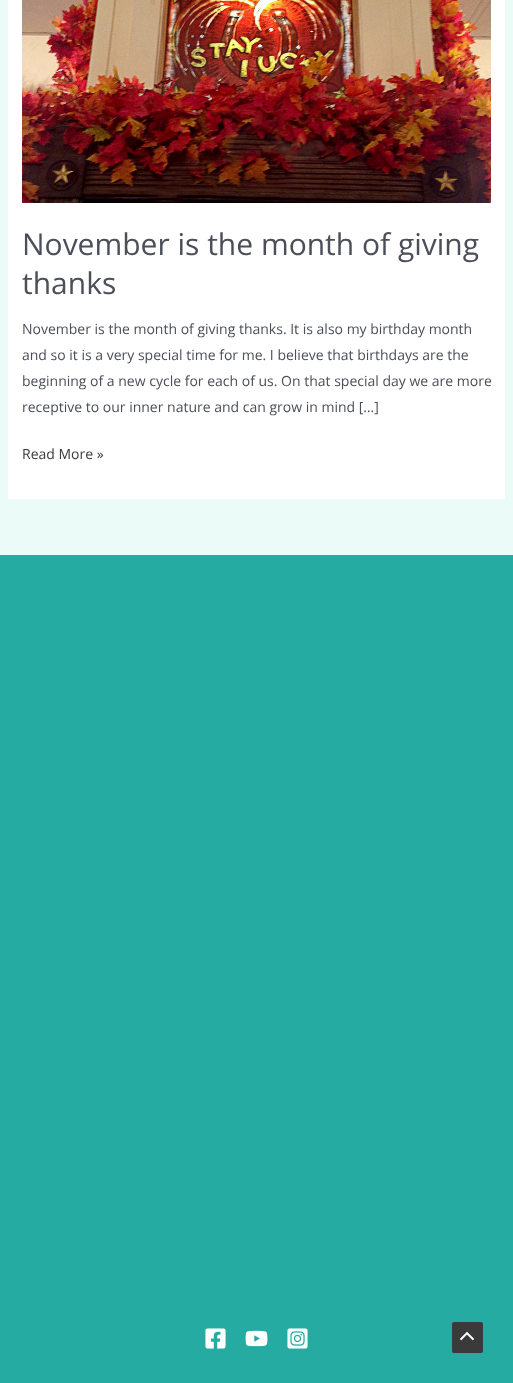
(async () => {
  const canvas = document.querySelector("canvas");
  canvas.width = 513;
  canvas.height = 1383;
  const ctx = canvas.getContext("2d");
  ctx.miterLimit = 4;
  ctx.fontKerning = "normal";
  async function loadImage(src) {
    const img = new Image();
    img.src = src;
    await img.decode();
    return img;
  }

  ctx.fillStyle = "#ebfbf7";
  ctx.fillRect(0, 0, 513, 1383);
  ctx.fillStyle = "#ffffff";
  ctx.fillRect(8, 0, 497, 499);
  ctx.drawImage(await loadImage("img/1.png"), 22, 0, 469, 203);
  ctx.fillStyle = "#26aba3";
  ctx.fillRect(0, 555, 513, 828);
  ctx.drawImage(await loadImage("img/2.png"), 205, 1328, 21, 21);
  ctx.drawImage(await loadImage("img/3.png"), 245, 1330, 23, 17);
  ctx.drawImage(await loadImage("img/4.png"), 287, 1328, 21, 21);
  ctx.fillStyle = "#3a3a3a";
  ctx.beginPath();
  ctx.roundRect(452, 1322, 31, 31, 2);
  ctx.fill();
  ctx.drawImage(await loadImage("img/5.png"), 460, 1331, 15, 10);
  ctx.font = "30px Open Sans";
  ctx.fillStyle = "#4b4f58";
  ctx.fillText("November is the month of giving", 22, 255);
  ctx.fillText("thanks", 22, 294);
  ctx.font = "14px Open Sans";
  for (const [text, x, y] of [
    ["November is the month of giving thanks. It is also my birthday month", 22, 334],
    ["and so it is a very special time for me. I believe that birthdays are the", 22, 360],
    ["beginning of a new cycle for each of us. On that special day we are more", 22, 386],
    ["receptive to our inner nature and can grow in mind […]", 22, 412],
  ]) {
    ctx.fillText(text, x, y);
  }
  ctx.fillStyle = "#3a3a3a";
  ctx.fillText("Read More »", 22, 459);
})();
